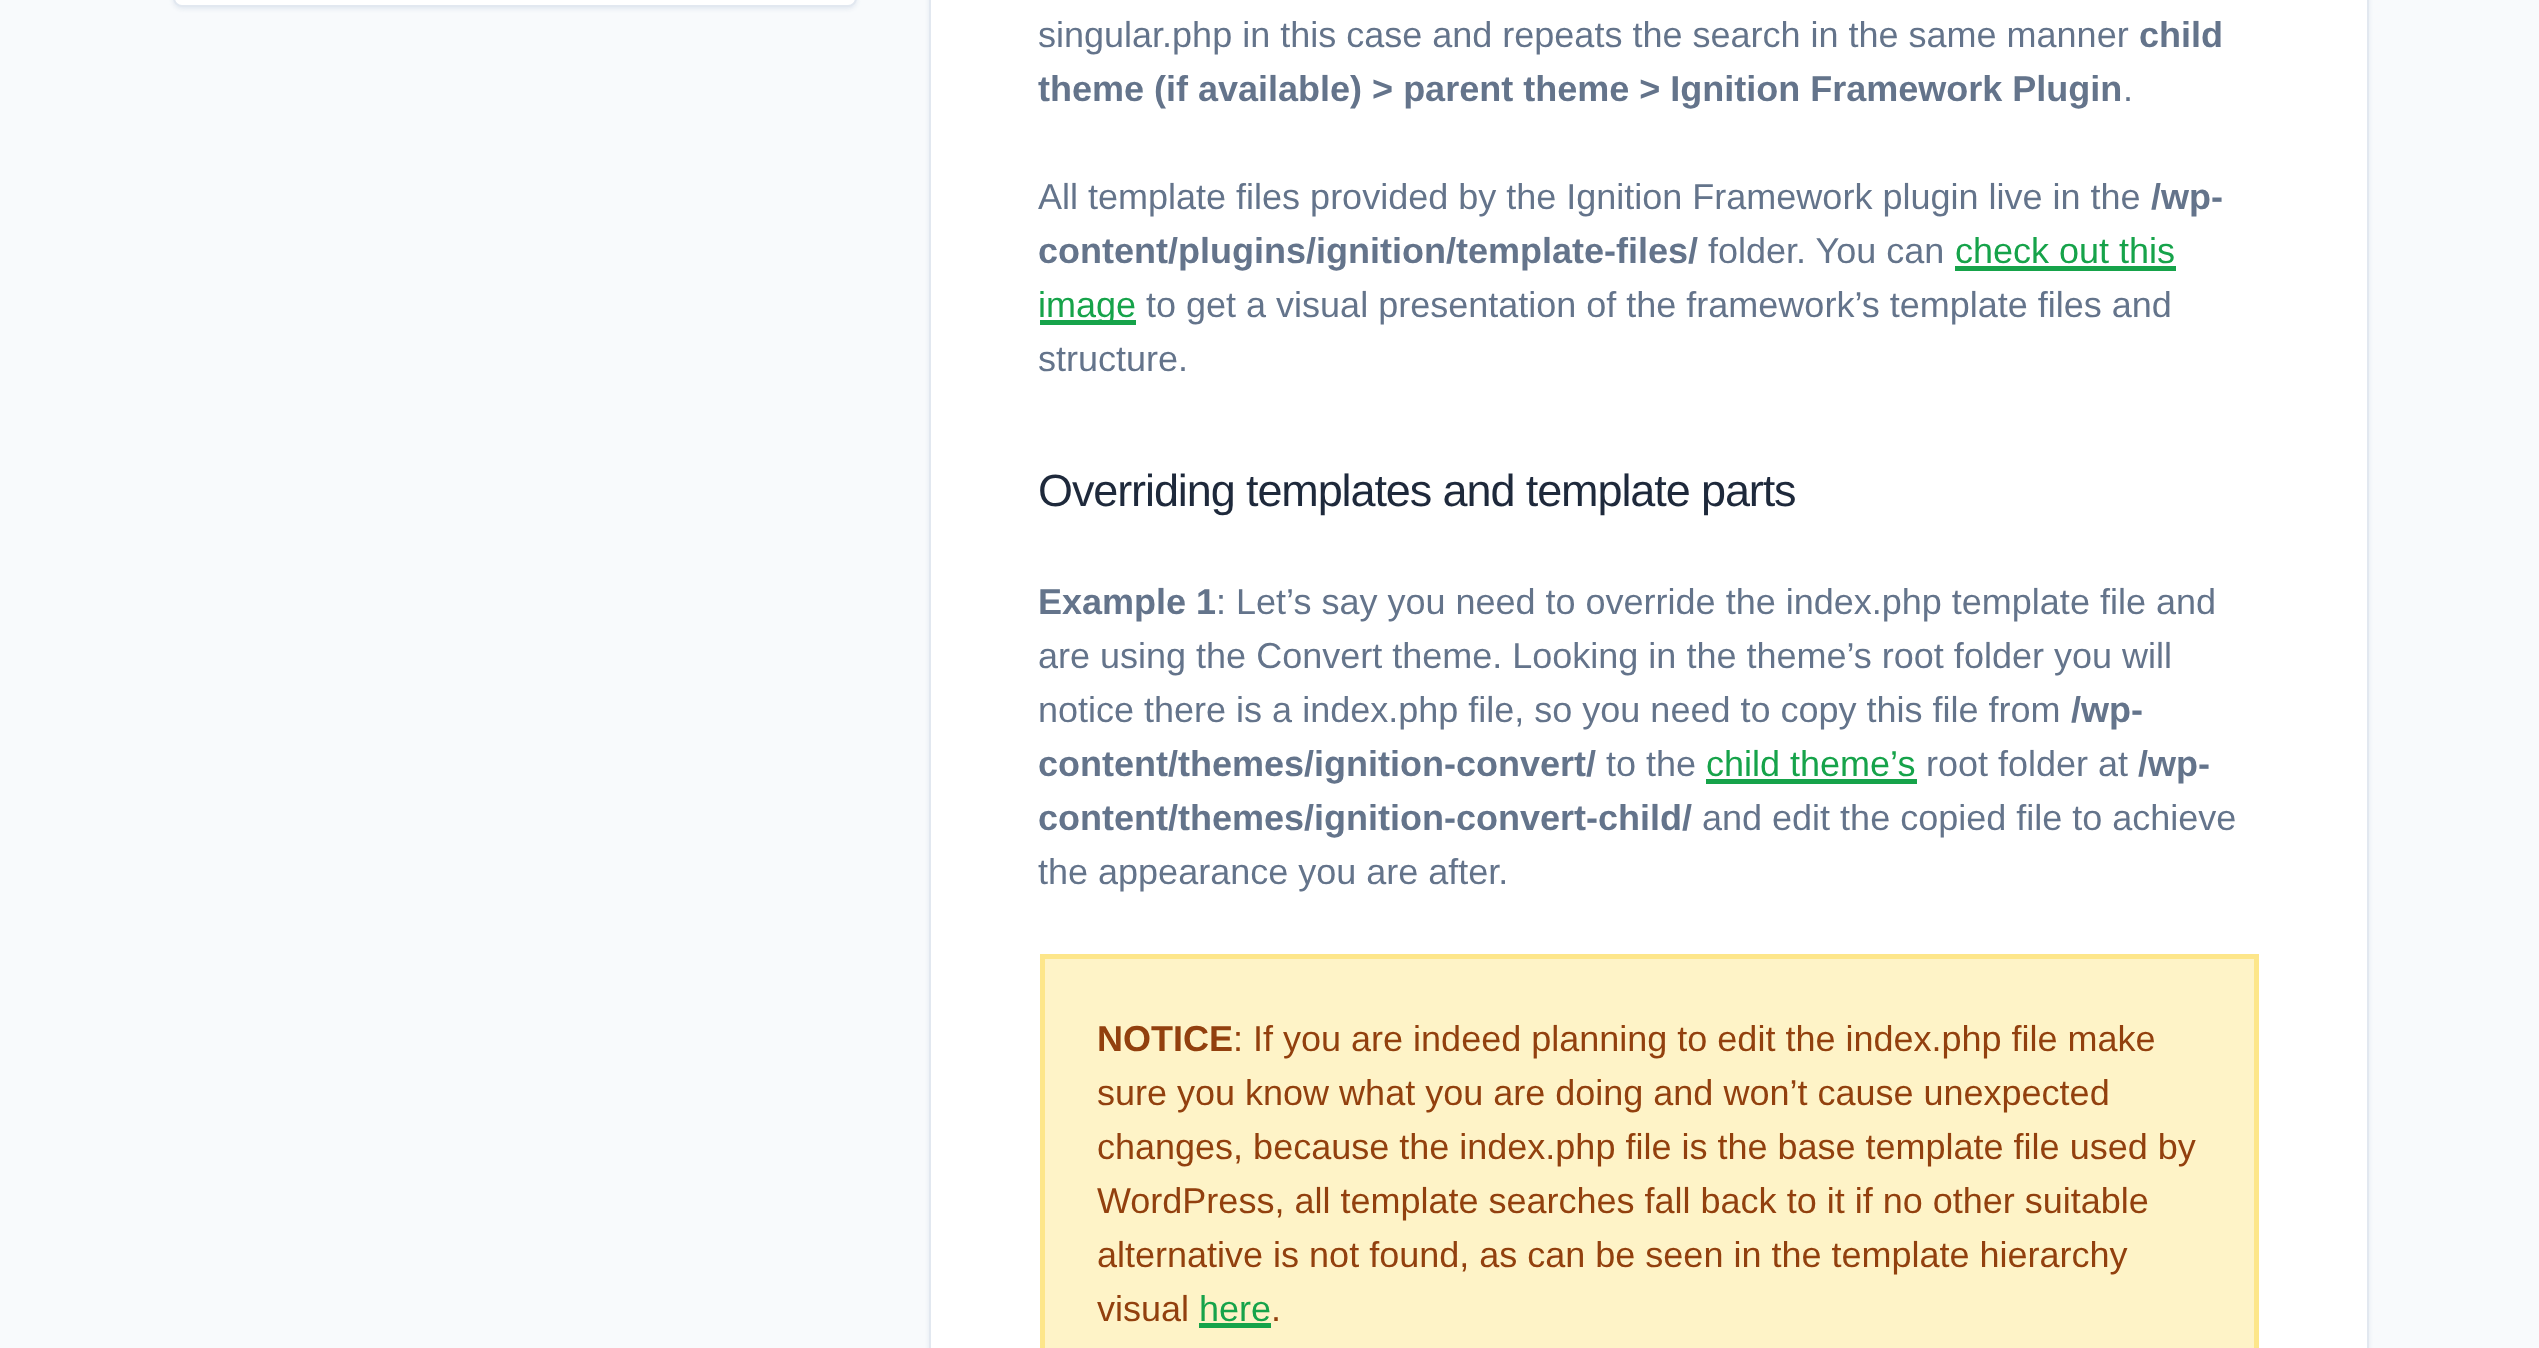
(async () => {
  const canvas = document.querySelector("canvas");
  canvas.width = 2539;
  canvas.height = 1348;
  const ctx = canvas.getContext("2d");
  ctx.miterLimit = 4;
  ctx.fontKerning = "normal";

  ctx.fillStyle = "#f8fafc";
  ctx.fillRect(0, 0, 2539, 1348);
  ctx.fillStyle = "#e2e8f0";
  ctx.filter = "blur(2px)";
  ctx.beginPath();
  ctx.roundRect(173, -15, 684, 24, 9);
  ctx.fill();
  ctx.filter = "none";
  ctx.fillStyle = "#ffffff";
  ctx.beginPath();
  ctx.roundRect(174, -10, 682, 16, 8);
  ctx.fill();
  ctx.strokeStyle = "#e2e8f0";
  ctx.lineWidth = 2;
  ctx.stroke();
  ctx.fillStyle = "#e2e8f0";
  ctx.filter = "blur(2px)";
  ctx.beginPath();
  ctx.roundRect(929, -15, 1440, 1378, 9);
  ctx.fill();
  ctx.filter = "none";
  ctx.fillStyle = "#ffffff";
  ctx.beginPath();
  ctx.rect(930, -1, 1438, 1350);
  ctx.fill();
  ctx.stroke();
  for (const [x, y, w, h, color] of [
    [1955, 266, 221, 5, "#16a34a"],
    [1040, 320, 96, 5, "#16a34a"],
    [1706, 779, 211, 5, "#16a34a"],
  ]) {
    ctx.fillStyle = color;
    ctx.fillRect(x, y, w, h);
  }
  ctx.fillStyle = "#fef3c7";
  ctx.beginPath();
  ctx.rect(1042.5, 956.5, 1214, 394);
  ctx.fill();
  ctx.strokeStyle = "#fde68a";
  ctx.lineWidth = 5;
  ctx.stroke();
  ctx.fillStyle = "#16a34a";
  ctx.fillRect(1199, 1323, 72, 5);
  ctx.font = "36px Liberation Sans";
  ctx.fillStyle = "#64748b";
  ctx.fillText("singular.php in this case and repeats the search in the same manner", 1038, 47);
  ctx.font = "bold 36px Liberation Sans";
  ctx.fillText("child", 2139, 47);
  ctx.fillText("theme (if available) > parent theme > Ignition Framework Plugin", 1038, 101);
  ctx.font = "36px Liberation Sans";
  ctx.fillText(".", 2123, 101);
  ctx.fillText("All template files provided by the Ignition Framework plugin live in the", 1038, 209);
  ctx.font = "bold 36px Liberation Sans";
  ctx.fillText("/wp-", 2151, 209);
  ctx.fillText("content/plugins/ignition/template-files/", 1038, 263);
  ctx.font = "36px Liberation Sans";
  ctx.fillText("folder. You can", 1708, 263);
  ctx.fillStyle = "#16a34a";
  ctx.fillText("check out this", 1955, 263);
  ctx.fillText("image", 1038, 317);
  ctx.fillStyle = "#64748b";
  ctx.fillText("to get a visual presentation of the framework’s template files and", 1146, 317);
  ctx.fillText("structure.", 1038, 371);
  ctx.letterSpacing = "-1.1px";
  ctx.font = "45px Liberation Sans";
  ctx.fillStyle = "#1e293b";
  ctx.fillText("Overriding templates and template parts", 1038, 506);
  ctx.letterSpacing = "0px";
  ctx.font = "bold 36px Liberation Sans";
  ctx.fillStyle = "#64748b";
  ctx.fillText("Example 1", 1038, 614);
  ctx.font = "36px Liberation Sans";
  for (const [text, x, y] of [
    [": Let’s say you need to override the index.php template file and", 1216, 614],
    ["are using the Convert theme. Looking in the theme’s root folder you will", 1038, 668],
    ["notice there is a index.php file, so you need to copy this file from", 1038, 722],
  ]) {
    ctx.fillText(text, x, y);
  }
  ctx.font = "bold 36px Liberation Sans";
  ctx.fillText("/wp-", 2071, 722);
  ctx.fillText("content/themes/ignition-convert/", 1038, 776);
  ctx.font = "36px Liberation Sans";
  ctx.fillText("to the", 1606, 776);
  ctx.fillStyle = "#16a34a";
  ctx.fillText("child theme’s", 1706, 776);
  ctx.fillStyle = "#64748b";
  ctx.fillText("root folder at", 1926, 776);
  ctx.font = "bold 36px Liberation Sans";
  ctx.fillText("/wp-", 2138, 776);
  ctx.fillText("content/themes/ignition-convert-child/", 1038, 830);
  ctx.font = "36px Liberation Sans";
  ctx.fillText("and edit the copied file to achieve", 1702, 830);
  ctx.fillText("the appearance you are after.", 1038, 884);
  ctx.font = "bold 36px Liberation Sans";
  ctx.fillStyle = "#92400e";
  ctx.fillText("NOTICE", 1097, 1051);
  ctx.font = "36px Liberation Sans";
  for (const [text, x, y] of [
    [": If you are indeed planning to edit the index.php file make", 1233, 1051],
    ["sure you know what you are doing and won’t cause unexpected", 1097, 1105],
    ["changes, because the index.php file is the base template file used by", 1097, 1159],
    ["WordPress, all template searches fall back to it if no other suitable", 1097, 1213],
    ["alternative is not found, as can be seen in the template hierarchy", 1097, 1267],
    ["visual", 1097, 1321],
  ]) {
    ctx.fillText(text, x, y);
  }
  ctx.fillStyle = "#16a34a";
  ctx.fillText("here", 1199, 1321);
  ctx.fillStyle = "#92400e";
  ctx.fillText(".", 1271, 1321);
})();
